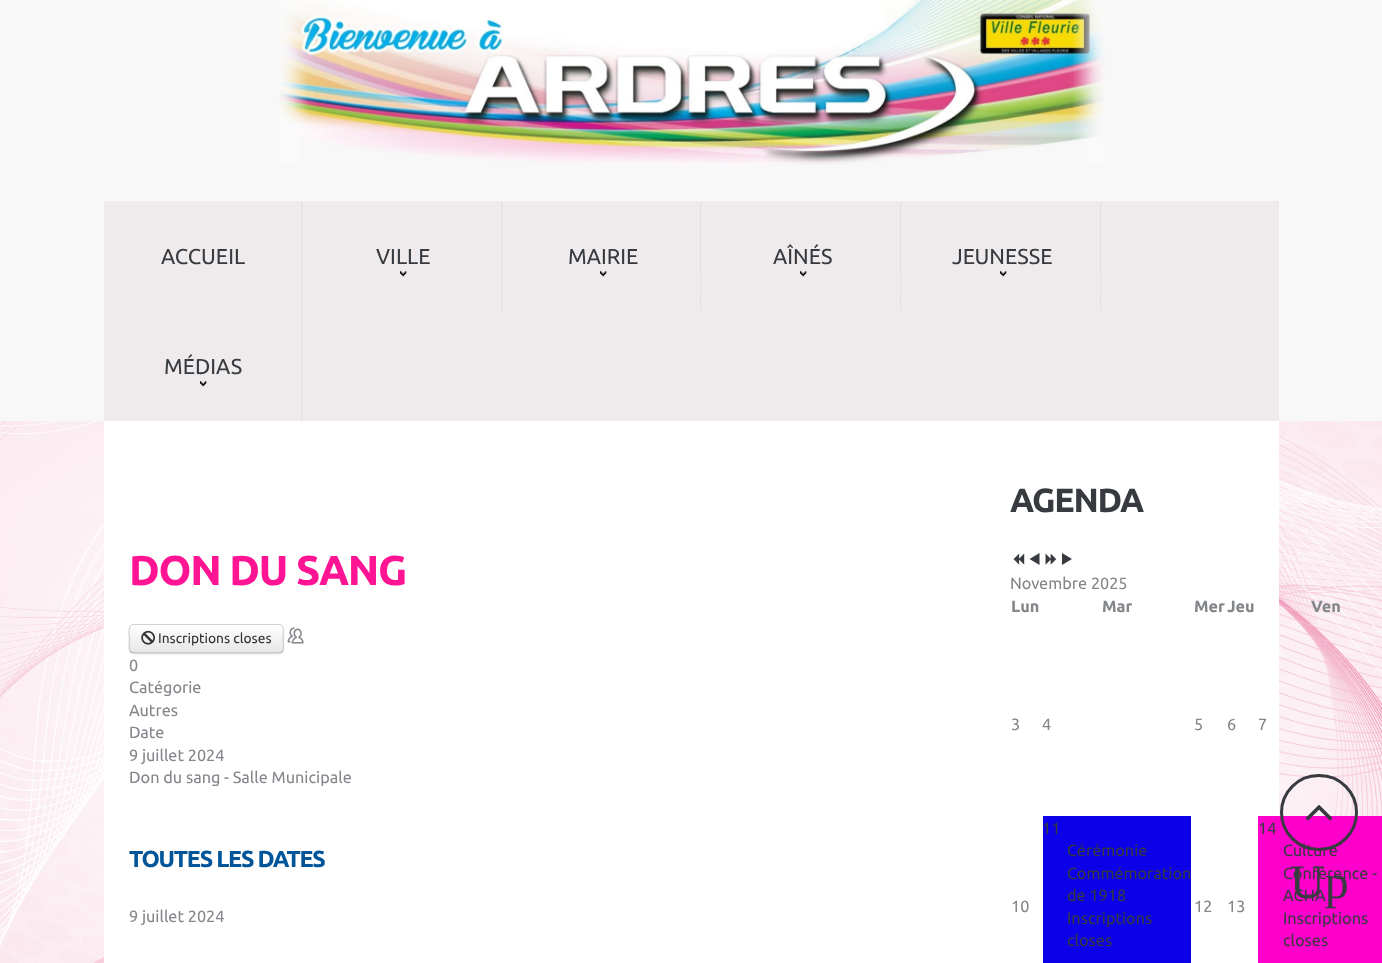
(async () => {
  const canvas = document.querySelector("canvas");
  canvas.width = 1382;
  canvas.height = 963;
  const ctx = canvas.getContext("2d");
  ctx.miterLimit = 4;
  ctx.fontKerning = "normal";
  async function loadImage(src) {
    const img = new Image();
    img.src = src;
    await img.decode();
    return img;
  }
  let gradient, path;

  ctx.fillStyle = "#ffffff";
  ctx.fillRect(0, 0, 1382, 963);
  ctx.drawImage(await loadImage("img/1.png"), 0, 421, 1382, 542);
  ctx.fillStyle = "#f8f8f8";
  ctx.fillRect(0, 0, 1382, 421);
  ctx.drawImage(await loadImage("img/2.png"), 279, 0, 827, 165);
  ctx.fillStyle = "#efebed";
  ctx.fillRect(104, 201, 1175, 220);
  ctx.drawImage(await loadImage("img/3.png"), 301, 202, 2, 109);
  ctx.drawImage(await loadImage("img/3.png"), 501, 202, 2, 109);
  ctx.drawImage(await loadImage("img/4.png"), 400, 271, 7, 6);
  ctx.drawImage(await loadImage("img/5.png"), 700, 202, 1, 109);
  ctx.drawImage(await loadImage("img/4.png"), 600, 271, 7, 6);
  ctx.drawImage(await loadImage("img/5.png"), 900, 202, 1, 109);
  ctx.drawImage(await loadImage("img/4.png"), 800, 271, 7, 6);
  ctx.drawImage(await loadImage("img/5.png"), 1100, 202, 1, 109);
  ctx.drawImage(await loadImage("img/6.png"), 1000, 271, 7, 6);
  ctx.fillStyle = "#ffffff";
  ctx.fillRect(104, 421, 1175, 542);
  ctx.drawImage(await loadImage("img/7.png"), 301, 312, 2, 110);
  ctx.drawImage(await loadImage("img/4.png"), 200, 381, 7, 6);
  ctx.fillStyle = "rgba(0, 0, 0, 0.05)";
  ctx.filter = "blur(1px)";
  ctx.beginPath();
  ctx.roundRect(129, 625, 155, 30, 5);
  ctx.fill();
  ctx.filter = "none";
  ctx.fillStyle = "#f5f5f5";
  ctx.beginPath();
  ctx.roundRect(129, 624, 155, 30, 5);
  ctx.fill();
  ctx.save();
  ctx.beginPath();
  ctx.roundRect(129, 624, 155, 30, 5);
  ctx.clip();
  gradient = ctx.createLinearGradient(206, 625, 206, 653);
  gradient.addColorStop(0, "#ffffff");
  gradient.addColorStop(1, "#e6e6e6");
  ctx.fillStyle = gradient;
  ctx.fillRect(129, 625, 155, 28);
  ctx.restore();
  ctx.fillStyle = "rgba(255, 255, 255, 0.2)";
  path = new Path2D("M134 626H279C283 626 282 635 282 637V652C282 651 283 650 283 649V629C283 627 281 625 279 625H134C132 625 130 627 130 629V630C130 628 132 626 134 626Z");
  ctx.fill(path);
  path = new Path2D("M282 652C281 652.5 280 653 279 653H134C132.5 653 131.5 652.5 130.5 652");
  ctx.strokeStyle = "rgba(0, 0, 0, 0.25)";
  ctx.lineWidth = 1.2;
  ctx.stroke(path);
  path = new Path2D("M130.5 652C128 649.5 129.5 642 129.5 639C129.5 635 127 624.5 134 624.5H279C285.5 624.5 283 635 283 639C283 642 284.5 649.5 282 652");
  ctx.strokeStyle = "rgba(0, 0, 0, 0.15)";
  ctx.stroke(path);
  ctx.drawImage(await loadImage("img/8.png"), 141, 630, 14, 15);
  ctx.drawImage(await loadImage("img/9.png"), 287, 627, 17, 17);
  ctx.drawImage(await loadImage("img/10.png"), 1013, 553, 12, 12);
  ctx.fillStyle = "#373a3f";
  path = new Path2D("M1039.5 565L1029.5 559L1039.5 553Z");
  ctx.fill(path);
  ctx.drawImage(await loadImage("img/11.png"), 1045, 553, 12, 12);
  path = new Path2D("M1062 553L1072 559L1062 565Z");
  ctx.fill(path);
  ctx.fillStyle = "#0c00e8";
  ctx.fillRect(1043, 816, 148, 147);
  ctx.fillStyle = "#ff00cc";
  ctx.fillRect(1258, 816, 124, 147);
  ctx.beginPath();
  ctx.roundRect(1281.5, 775.5, 75, 74, 37);
  ctx.strokeStyle = "#373a3f";
  ctx.lineWidth = 3;
  ctx.stroke();
  ctx.drawImage(await loadImage("img/12.png"), 1305, 805, 28, 16);
  ctx.font = "21.5px Ubuntu";
  ctx.fillStyle = "#373a3f";
  for (const [text, x, y] of [
    ["ACCUEIL", 161, 264],
    ["VILLE", 376, 264],
    ["MAIRIE", 568, 264],
    ["AÎNÉS", 773, 264],
    ["JEUNESSE", 952, 264],
    ["MÉDIAS", 164, 374],
  ]) {
    ctx.fillText(text, x, y);
  }
  ctx.letterSpacing = "-1.25px";
  ctx.font = "bold 41.75px Ubuntu";
  ctx.fillStyle = "#ff1493";
  ctx.fillText("DON DU SANG", 129, 585);
  ctx.letterSpacing = "0px";
  ctx.font = "13.75px Ubuntu";
  ctx.fillStyle = "#333333";
  ctx.fillText("Inscriptions closes", 158, 643);
  ctx.font = "16.25px Ubuntu";
  ctx.fillStyle = "#83868a";
  for (const [text, x, y] of [
    ["0", 129, 671],
    ["Catégorie", 129, 693],
    ["Autres", 129, 716],
    ["Date", 129, 738],
    ["9 juillet 2024", 129, 761],
    ["Don du sang - Salle Municipale", 129, 783],
  ]) {
    ctx.fillText(text, x, y);
  }
  ctx.letterSpacing = "-1.25px";
  ctx.font = "bold 23.25px Ubuntu";
  ctx.fillStyle = "#005599";
  ctx.fillText("TOUTES LES DATES", 129, 867);
  ctx.letterSpacing = "0px";
  ctx.font = "16.25px Ubuntu";
  ctx.fillStyle = "#83868a";
  ctx.fillText("9 juillet 2024", 129, 922);
  ctx.letterSpacing = "-1.25px";
  ctx.font = "bold 33.5px Ubuntu";
  ctx.fillStyle = "#373a3f";
  ctx.fillText("AGENDA", 1010, 512);
  ctx.letterSpacing = "0px";
  ctx.font = "16.25px Ubuntu";
  ctx.fillStyle = "#83868a";
  ctx.fillText("Novembre 2025", 1010, 589);
  ctx.font = "bold 16.25px Ubuntu";
  for (const [text, x, y] of [
    ["Lun", 1011, 612],
    ["Mar", 1102, 612],
    ["Mer", 1194, 612],
    ["Jeu", 1227, 612],
    ["Ven", 1311, 612],
  ]) {
    ctx.fillText(text, x, y);
  }
  ctx.font = "16.25px Ubuntu";
  for (const [text, x, y] of [
    ["3", 1011, 730],
    ["4", 1042, 730],
    ["5", 1194, 730],
    ["6", 1227, 730],
    ["7", 1258, 730],
    ["10", 1011, 912],
  ]) {
    ctx.fillText(text, x, y);
  }
  ctx.fillStyle = "#373a3f";
  for (const [text, x, y] of [
    ["11", 1042, 834],
    ["Cérémonie", 1067, 856],
    ["Commémoration", 1067, 879],
    ["de 1918", 1067, 901],
    ["Inscriptions", 1067, 924],
    ["closes", 1067, 946],
  ]) {
    ctx.fillText(text, x, y);
  }
  ctx.fillStyle = "#83868a";
  ctx.fillText("12", 1194, 912);
  ctx.fillText("13", 1227, 912);
  ctx.fillStyle = "#373a3f";
  for (const [text, x, y] of [
    ["14", 1258, 834],
    ["Culture", 1283, 856],
    ["Conférence -", 1283, 879],
    ["ACHA", 1283, 901],
    ["Inscriptions", 1283, 924],
    ["closes", 1283, 946],
  ]) {
    ctx.fillText(text, x, y);
  }
  ctx.font = "48px Liberation Serif";
  ctx.fillText("Up", 1290, 898);
})();
